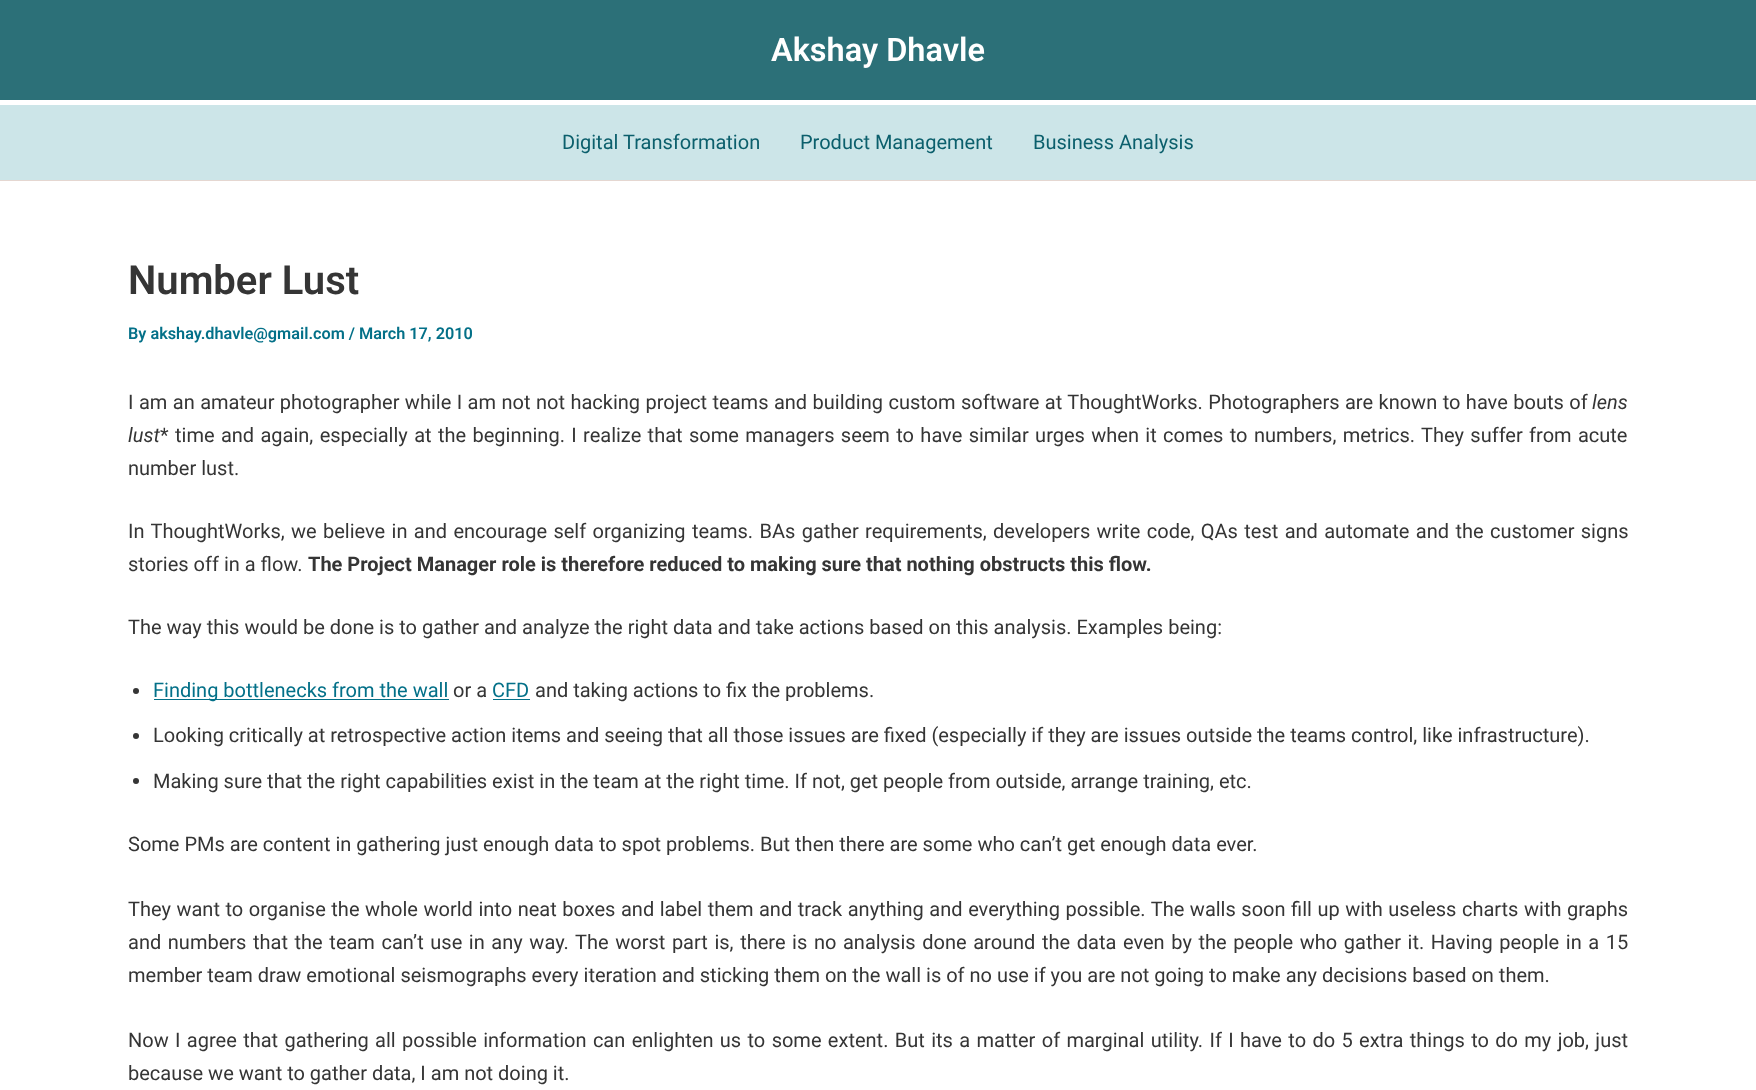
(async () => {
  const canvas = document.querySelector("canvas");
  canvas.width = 1756;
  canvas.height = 1090;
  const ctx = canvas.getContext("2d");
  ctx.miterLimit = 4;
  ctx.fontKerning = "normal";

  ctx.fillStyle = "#ffffff";
  ctx.fillRect(0, 0, 1756, 1090);
  for (const [x, y, w, h, color] of [
    [0, 0, 1756, 100, "#2c7078"],
    [0, 105, 1756, 75, "#cce5e8"],
    [0, 180, 1756, 1, "#e5d7d1"],
  ]) {
    ctx.fillStyle = color;
    ctx.fillRect(x, y, w, h);
  }
  ctx.fillStyle = "#353535";
  ctx.beginPath();
  ctx.arc(136, 691, 3, 0, Math.PI * 2);
  ctx.fill();
  ctx.fillStyle = "#037088";
  ctx.fillRect(154, 699, 295, 1);
  ctx.fillRect(493, 699, 37, 1);
  ctx.fillStyle = "#353535";
  ctx.beginPath();
  ctx.arc(136, 736, 3, 0, Math.PI * 2);
  ctx.fill();
  ctx.beginPath();
  ctx.arc(136, 781, 3, 0, Math.PI * 2);
  ctx.fill();
  ctx.font = "600 32.5px Roboto";
  ctx.fillStyle = "#ffffff";
  ctx.fillText("Akshay Dhavle", 771, 61);
  ctx.font = "20px Roboto";
  ctx.fillStyle = "#0b5f6c";
  for (const [text, x, y] of [
    ["Digital Transformation", 562, 149],
    ["Product Management", 800, 149],
    ["Business Analysis", 1033, 149],
  ]) {
    ctx.fillText(text, x, y);
  }
  ctx.font = "600 40px Roboto";
  ctx.fillStyle = "#353535";
  ctx.fillText("Number Lust", 128, 294);
  ctx.font = "600 16.25px Roboto";
  ctx.fillStyle = "#037088";
  ctx.fillText("By akshay.dhavle@gmail.com / March 17, 2010", 128, 339);
  ctx.wordSpacing = "0.5px";
  ctx.font = "20px Roboto";
  ctx.fillStyle = "#353535";
  ctx.fillText("I am an amateur photographer while I am not not hacking project teams and building custom software at ThoughtWorks. Photographers are known to have bouts of", 128, 409);
  ctx.wordSpacing = "0px";
  ctx.font = "italic 20px Roboto";
  ctx.fillText("lens", 1592, 409);
  ctx.fillText("lust", 128, 442);
  ctx.wordSpacing = "1.4px";
  ctx.font = "20px Roboto";
  ctx.fillText("* time and again, especially at the beginning. I realize that some managers seem to have similar urges when it comes to numbers, metrics. They suffer from acute", 160, 442);
  ctx.wordSpacing = "0px";
  ctx.fillText("number lust.", 128, 475);
  ctx.wordSpacing = "1.4px";
  ctx.fillText("In ThoughtWorks, we believe in and encourage self organizing teams. BAs gather requirements, developers write code, QAs test and automate and the customer signs", 128, 538);
  ctx.wordSpacing = "0px";
  ctx.fillText("stories off in a flow.", 128, 571);
  ctx.font = "bold 20px Roboto";
  ctx.fillText("The Project Manager role is therefore reduced to making sure that nothing obstructs this flow.", 308, 571);
  ctx.font = "20px Roboto";
  ctx.fillText("The way this would be done is to gather and analyze the right data and take actions based on this analysis. Examples being:", 128, 634);
  ctx.fillStyle = "#037088";
  ctx.fillText("Finding bottlenecks from the wall", 153, 697);
  ctx.fillStyle = "#353535";
  ctx.fillText("or a", 453, 697);
  ctx.fillStyle = "#037088";
  ctx.fillText("CFD", 492, 697);
  ctx.fillStyle = "#353535";
  for (const [text, x, y] of [
    ["and taking actions to fix the problems.", 535, 697],
    ["Looking critically at retrospective action items and seeing that all those issues are fixed (especially if they are issues outside the teams control, like infrastructure).", 153, 742],
    ["Making sure that the right capabilities exist in the team at the right time. If not, get people from outside, arrange training, etc.", 153, 788],
    ["Some PMs are content in gathering just enough data to spot problems. But then there are some who can’t get enough data ever.", 128, 851],
  ]) {
    ctx.fillText(text, x, y);
  }
  ctx.wordSpacing = "0.6px";
  ctx.fillText("They want to organise the whole world into neat boxes and label them and track anything and everything possible. The walls soon fill up with useless charts with graphs", 128, 916);
  ctx.wordSpacing = "1.65px";
  ctx.fillText("and numbers that the team can’t use in any way. The worst part is, there is no analysis done around the data even by the people who gather it. Having people in a 15", 128, 949);
  ctx.wordSpacing = "0px";
  ctx.fillText("member team draw emotional seismographs every iteration and sticking them on the wall is of no use if you are not going to make any decisions based on them.", 128, 982);
  ctx.wordSpacing = "1.4px";
  ctx.fillText("Now I agree that gathering all possible information can enlighten us to some extent. But its a matter of marginal utility. If I have to do 5 extra things to do my job, just", 128, 1047);
  ctx.wordSpacing = "0px";
  ctx.fillText("because we want to gather data, I am not doing it.", 128, 1080);
})();
